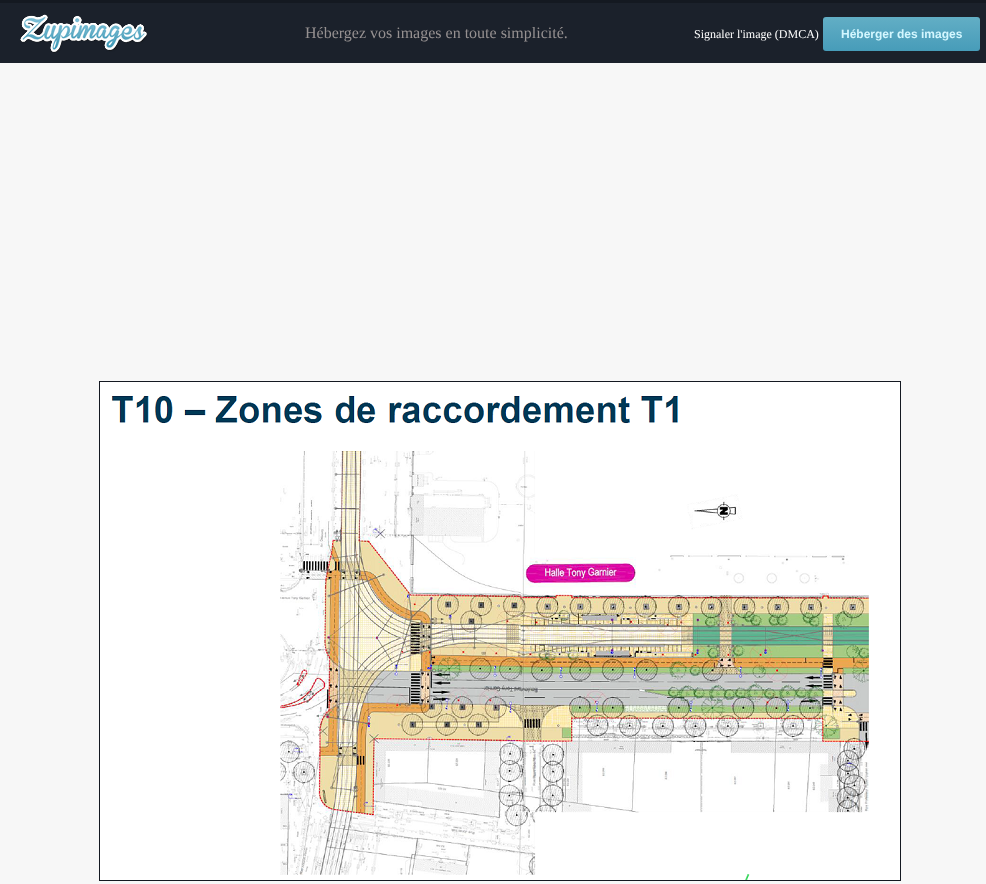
(async () => {
  const canvas = document.querySelector("canvas");
  canvas.width = 986;
  canvas.height = 884;
  const ctx = canvas.getContext("2d");
  ctx.miterLimit = 4;
  ctx.fontKerning = "normal";
  async function loadImage(src) {
    const img = new Image();
    img.src = src;
    await img.decode();
    return img;
  }
  let gradient;

  ctx.fillStyle = "#f7f7f7";
  ctx.fillRect(0, 0, 986, 884);
  ctx.fillStyle = "#1b212b";
  ctx.fillRect(0, 3, 986, 60);
  ctx.fillStyle = "#141921";
  ctx.fillRect(0, 0, 986, 3);
  ctx.drawImage(await loadImage("img/1.png"), 20, 14, 127, 39);
  gradient = ctx.createLinearGradient(902, 17, 902, 51);
  gradient.addColorStop(0, "#62aec5");
  gradient.addColorStop(1, "#479cb9");
  ctx.fillStyle = gradient;
  ctx.beginPath();
  ctx.roundRect(823, 17, 157, 34, 3);
  ctx.fill();
  ctx.strokeStyle = "#141921";
  ctx.strokeRect(99.5, 381.5, 801, 499);
  ctx.drawImage(await loadImage("img/2.png"), 100, 382, 800, 498);
  ctx.font = "16px Liberation Serif";
  ctx.fillStyle = "#969191";
  ctx.fillText("Hébergez vos images en toute simplicité.", 305, 38);
  ctx.font = "12px Liberation Serif";
  ctx.fillStyle = "#ffffff";
  ctx.fillText("Signaler l'image (DMCA)", 694, 38);
  ctx.font = "bold 12px Liberation Sans";
  ctx.fillStyle = "#d3f7ff";
  ctx.fillText("Héberger des images", 841, 38);
})();
